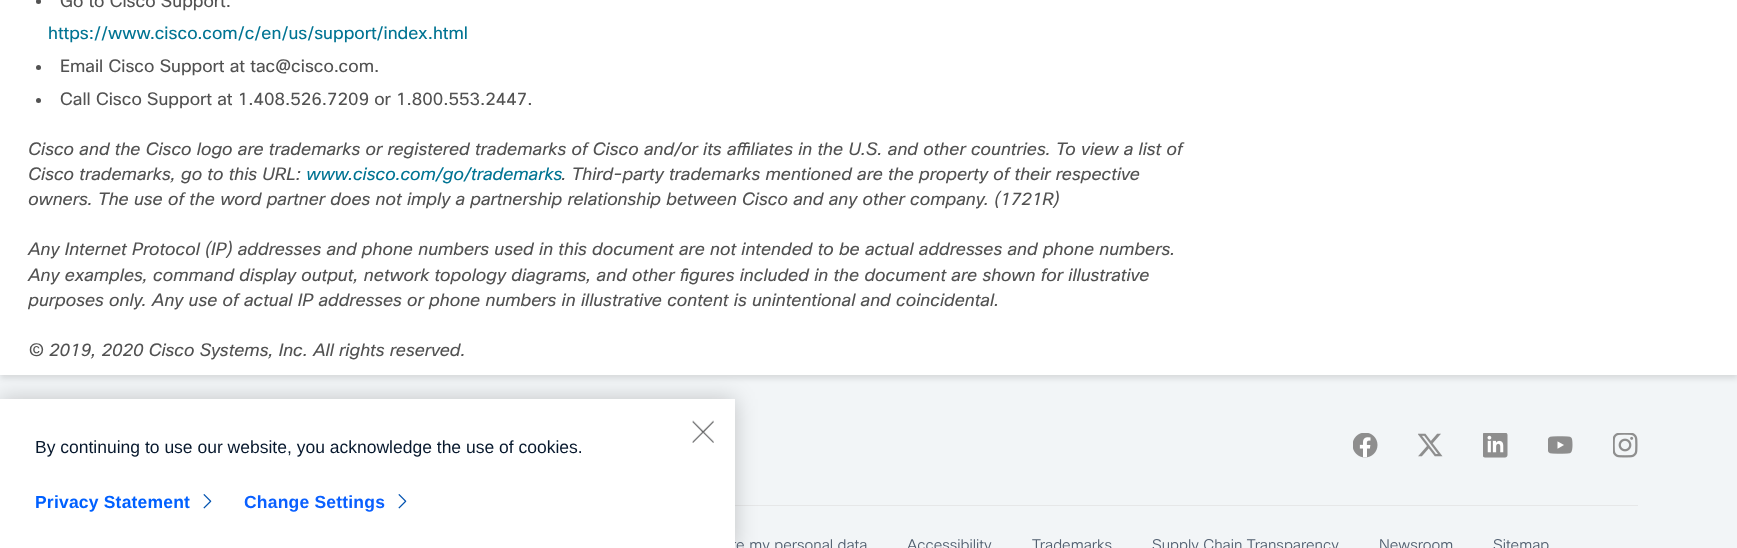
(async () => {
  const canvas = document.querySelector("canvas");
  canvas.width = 1737;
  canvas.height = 548;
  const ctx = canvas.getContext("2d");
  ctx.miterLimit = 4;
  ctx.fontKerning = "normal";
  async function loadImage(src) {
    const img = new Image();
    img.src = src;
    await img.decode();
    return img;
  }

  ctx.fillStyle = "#f2f5f7";
  ctx.fillRect(0, 0, 1737, 548);
  ctx.fillStyle = "rgba(0, 0, 0, 0.12)";
  ctx.filter = "blur(3px)";
  ctx.beginPath();
  ctx.rect(0, -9, 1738, 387);
  ctx.fill();
  ctx.filter = "none";
  ctx.fillStyle = "#ffffff";
  ctx.fillRect(0, 0, 1737, 375);
  ctx.fillStyle = "#525252";
  ctx.beginPath();
  ctx.arc(38.5, 1.5, 2.5, 0, Math.PI * 2);
  ctx.fill();
  ctx.beginPath();
  ctx.arc(38.5, 67.5, 2.5, 0, Math.PI * 2);
  ctx.fill();
  ctx.beginPath();
  ctx.arc(38.5, 100.5, 2.5, 0, Math.PI * 2);
  ctx.fill();
  ctx.fillStyle = "#e6e7e8";
  ctx.fillRect(735, 505, 903, 1);
  ctx.fillStyle = "rgba(0, 0, 0, 0.2)";
  ctx.filter = "blur(11px)";
  ctx.beginPath();
  ctx.rect(0, 399, 735, 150);
  ctx.fill();
  ctx.filter = "none";
  ctx.drawImage(await loadImage("img/3.png"), 1353, 433, 25, 25);
  ctx.drawImage(await loadImage("img/4.png"), 1418, 433, 25, 24);
  ctx.drawImage(await loadImage("img/5.png"), 1483, 433, 25, 25);
  ctx.drawImage(await loadImage("img/6.png"), 1548, 436, 25, 18);
  ctx.drawImage(await loadImage("img/7.png"), 1613, 433, 25, 25);
  ctx.font = "17.5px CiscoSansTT";
  ctx.fillStyle = "#525252";
  ctx.fillText("Go to Cisco Support:", 60, 7);
  ctx.fillStyle = "#007493";
  ctx.fillText("https://www.cisco.com/c/en/us/support/index.html", 48, 39);
  ctx.fillStyle = "#525252";
  ctx.fillText("Email Cisco Support at tac@cisco.com.", 60, 72);
  ctx.fillText("Call Cisco Support at 1.408.526.7209 or 1.800.553.2447.", 60, 105);
  ctx.font = "italic 17.5px CiscoSansTT";
  ctx.fillText("Cisco and the Cisco logo are trademarks or registered trademarks of Cisco and/or its affiliates in the U.S. and other countries. To view a list of", 28, 155);
  ctx.fillText("Cisco trademarks, go to this URL:", 28, 180);
  ctx.fillStyle = "#007493";
  ctx.fillText("www.cisco.com/go/trademarks", 306, 180);
  ctx.fillStyle = "#525252";
  for (const [text, x, y] of [
    [". Third-party trademarks mentioned are the property of their respective", 561, 180],
    ["owners. The use of the word partner does not imply a partnership relationship between Cisco and any other company. (1721R)", 28, 205],
    ["Any Internet Protocol (IP) addresses and phone numbers used in this document are not intended to be actual addresses and phone numbers.", 28, 255],
    ["Any examples, command display output, network topology diagrams, and other figures included in the document are shown for illustrative", 28, 281],
  ]) {
    ctx.fillText(text, x, y);
  }
  ctx.save();
  ctx.beginPath();
  ctx.rect(28, 0, 1255, 375);
  ctx.clip();
  ctx.fillText("purposes only. Any use of actual IP addresses or phone numbers in illustrative content is unintentional and coincidental.", 28, 306);
  ctx.restore();
  ctx.fillText("© 2019, 2020 Cisco Systems, Inc. All rights reserved.", 28, 356);
  ctx.font = "300 15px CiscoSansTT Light";
  ctx.fillStyle = "#536070";
  ctx.fillText("re my personal data", 731, 550);
  ctx.fillStyle = "#ffffff";
  ctx.fillRect(0, 399, 735, 149);
  ctx.drawImage(await loadImage("img/1.png"), 692, 420, 22, 23);
  ctx.drawImage(await loadImage("img/2.png"), 398, 494, 9, 15);
  ctx.drawImage(await loadImage("img/2.png"), 203, 494, 9, 15);
  ctx.letterSpacing = "0.2px";
  ctx.font = "bold 17.5px Liberation Sans";
  ctx.fillStyle = "#0a60ff";
  ctx.fillText("Change Settings", 244, 508);
  ctx.fillStyle = "#0060ff";
  ctx.fillText("Privacy Statement", 35, 508);
  ctx.letterSpacing = "0px";
  ctx.font = "17.5px Liberation Sans";
  ctx.fillStyle = "#07182d";
  ctx.fillText("By continuing to use our website, you acknowledge the use of cookies.", 35, 453);
  ctx.font = "300 15px CiscoSansTT Light";
  ctx.fillStyle = "#536070";
  for (const [text, x, y] of [
    ["Accessibility", 907, 550],
    ["Trademarks", 1032, 550],
    ["Supply Chain Transparency", 1152, 550],
    ["Newsroom", 1379, 550],
    ["Sitemap", 1493, 550],
  ]) {
    ctx.fillText(text, x, y);
  }
})();
